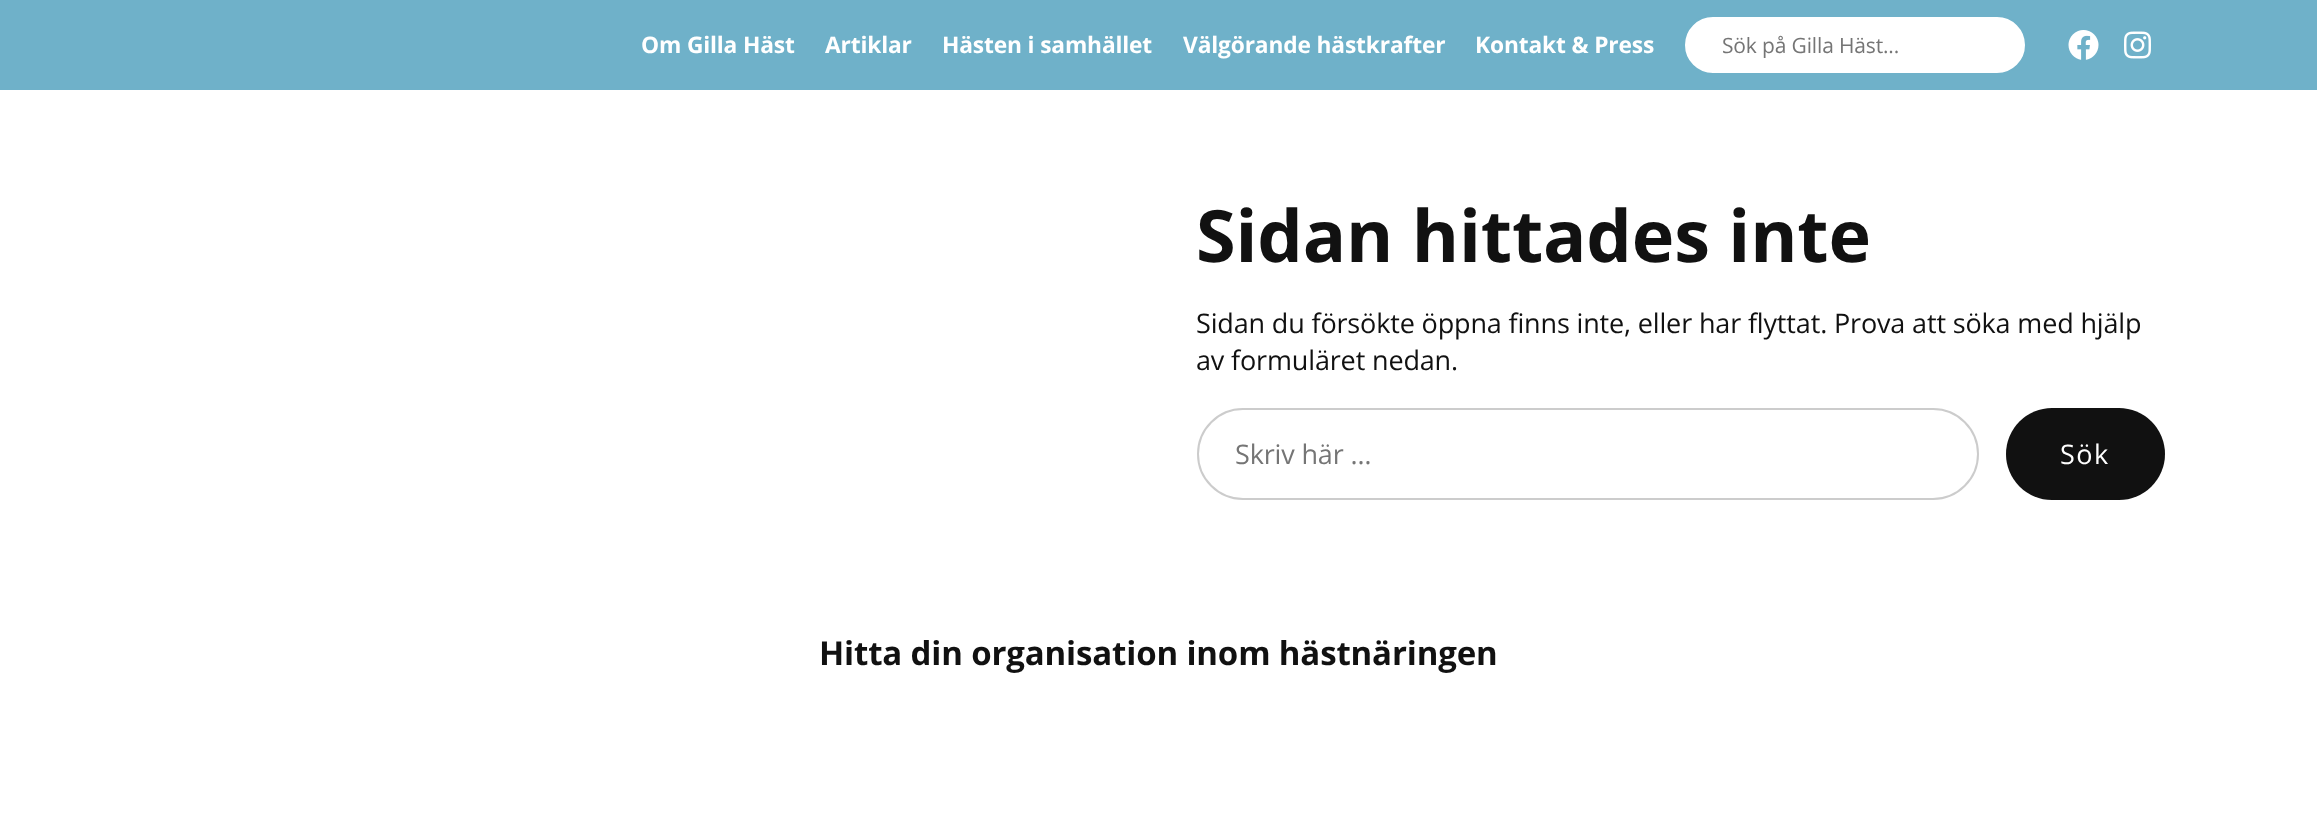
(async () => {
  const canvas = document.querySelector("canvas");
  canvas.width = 2317;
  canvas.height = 834;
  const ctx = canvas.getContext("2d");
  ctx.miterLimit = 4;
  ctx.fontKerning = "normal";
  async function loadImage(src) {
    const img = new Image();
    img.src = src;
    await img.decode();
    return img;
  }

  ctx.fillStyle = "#ffffff";
  ctx.fillRect(0, 0, 2317, 834);
  ctx.fillStyle = "#6fb1c9";
  ctx.fillRect(0, 0, 2317, 90);
  ctx.fillStyle = "#ffffff";
  ctx.beginPath();
  ctx.roundRect(1684, 16, 342, 58, 29);
  ctx.fill();
  ctx.strokeStyle = "#6fb1c9";
  ctx.lineWidth = 2;
  ctx.stroke();
  ctx.drawImage(await loadImage("img/1.png"), 2068, 30, 31, 30);
  ctx.drawImage(await loadImage("img/2.png"), 2124, 31, 27, 28);
  ctx.beginPath();
  ctx.roundRect(1198, 409, 780, 90, 45);
  ctx.strokeStyle = "#cccccc";
  ctx.stroke();
  ctx.fillStyle = "#111111";
  ctx.beginPath();
  ctx.roundRect(2006, 408, 159, 92, 46);
  ctx.fill();
  ctx.letterSpacing = "-0.15px";
  ctx.font = "bold 22.75px Open Sans";
  ctx.fillStyle = "#ffffff";
  for (const [text, x, y] of [
    ["Om Gilla Häst", 641, 53],
    ["Artiklar", 825, 53],
    ["Hästen i samhället", 942, 53],
    ["Välgörande hästkrafter", 1183, 53],
    ["Kontakt & Press", 1475, 53],
  ]) {
    ctx.fillText(text, x, y);
  }
  ctx.font = "21px Open Sans";
  ctx.fillStyle = "#757575";
  ctx.fillText("Sök på Gilla Häst...", 1722, 53);
  ctx.font = "bold 72px Open Sans";
  ctx.fillStyle = "#111111";
  ctx.fillText("Sidan hittades inte", 1196, 262);
  ctx.font = "27px Open Sans";
  ctx.fillText("Sidan du försökte öppna finns inte, eller har flyttat. Prova att söka med hjälp", 1196, 333);
  ctx.fillText("av formuläret nedan.", 1196, 370);
  ctx.fillStyle = "#757575";
  ctx.fillText("Skriv här …", 1235, 464);
  ctx.letterSpacing = "1.5px";
  ctx.fillStyle = "#ffffff";
  ctx.fillText("Sök", 2060, 464);
  ctx.letterSpacing = "-0.15px";
  ctx.font = "bold 33px Open Sans";
  ctx.fillStyle = "#111111";
  ctx.fillText("Hitta din organisation inom hästnäringen", 819, 665);
})();
